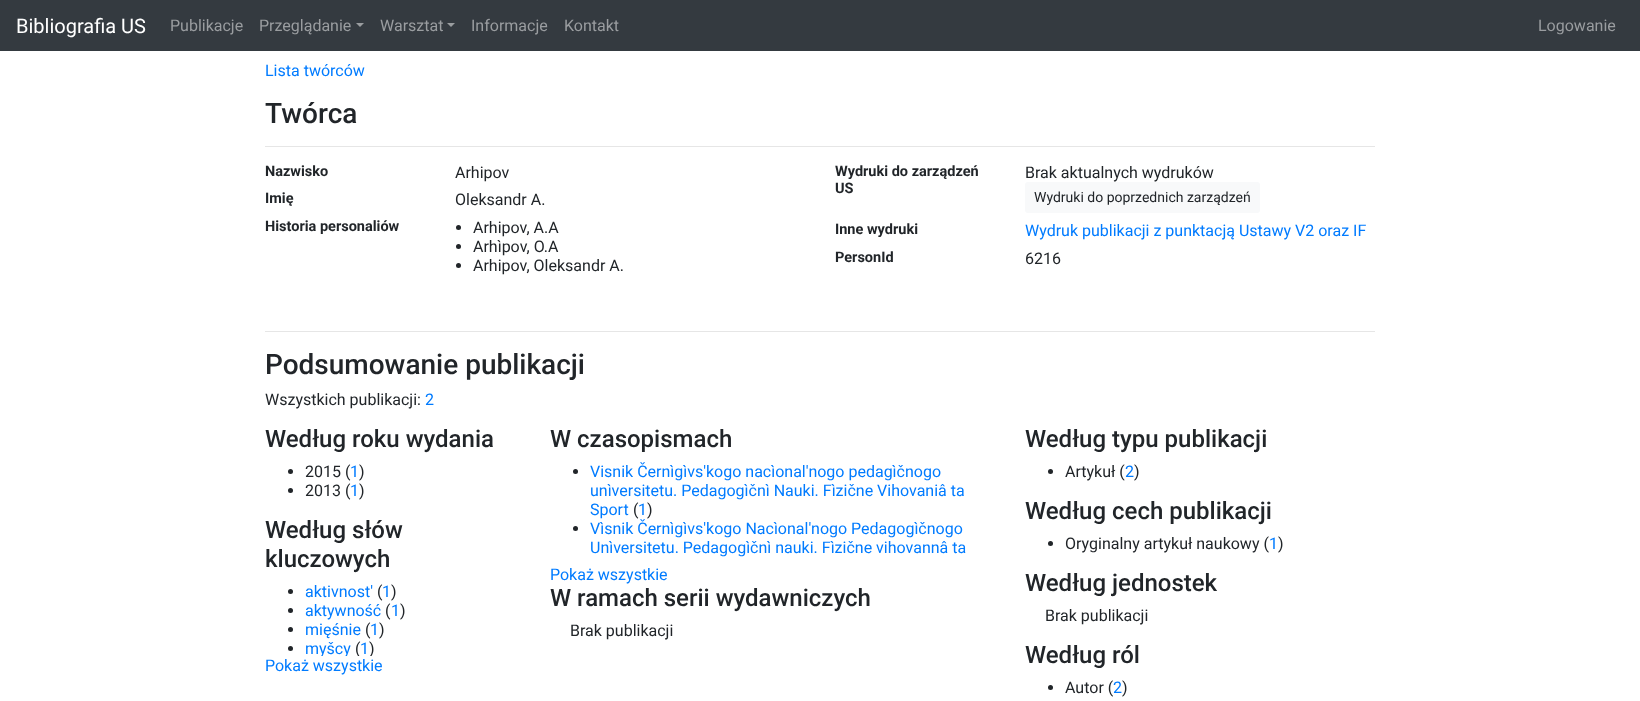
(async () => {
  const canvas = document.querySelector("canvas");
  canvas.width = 1640;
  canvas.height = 701;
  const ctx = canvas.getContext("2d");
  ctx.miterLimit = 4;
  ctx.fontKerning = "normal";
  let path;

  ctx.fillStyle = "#ffffff";
  ctx.fillRect(0, 0, 1640, 701);
  ctx.fillStyle = "#343a40";
  ctx.fillRect(0, 0, 1640, 51);
  ctx.fillStyle = "#9a9da0";
  path = new Path2D("M356 23H364L360 27Z");
  ctx.fill(path);
  path = new Path2D("M447 23H455L451 27Z");
  ctx.fill(path);
  ctx.fillStyle = "#e6e6e6";
  ctx.fillRect(265, 146, 1110, 1);
  ctx.fillStyle = "#212529";
  ctx.beginPath();
  ctx.arc(458.5, 227.5, 2.5, 0, Math.PI * 2);
  ctx.fill();
  ctx.beginPath();
  ctx.arc(458.5, 246.5, 2.5, 0, Math.PI * 2);
  ctx.fill();
  ctx.beginPath();
  ctx.arc(458.5, 265.5, 2.5, 0, Math.PI * 2);
  ctx.fill();
  ctx.fillStyle = "#f8f9fa";
  ctx.beginPath();
  ctx.roundRect(1025, 182, 235, 31, 3);
  ctx.fill();
  ctx.fillStyle = "#e6e6e6";
  ctx.fillRect(265, 331, 1110, 1);
  ctx.fillStyle = "#212529";
  ctx.beginPath();
  ctx.arc(290.5, 471.5, 2.5, 0, Math.PI * 2);
  ctx.fill();
  ctx.beginPath();
  ctx.arc(290.5, 490.5, 2.5, 0, Math.PI * 2);
  ctx.fill();
  ctx.beginPath();
  ctx.arc(290.5, 591.5, 2.5, 0, Math.PI * 2);
  ctx.fill();
  ctx.beginPath();
  ctx.arc(290.5, 610.5, 2.5, 0, Math.PI * 2);
  ctx.fill();
  ctx.beginPath();
  ctx.arc(290.5, 629.5, 2.5, 0, Math.PI * 2);
  ctx.fill();
  ctx.beginPath();
  ctx.arc(290.5, 648.5, 2.5, 0, Math.PI * 2);
  ctx.fill();
  ctx.beginPath();
  ctx.arc(575.5, 471.5, 2.5, 0, Math.PI * 2);
  ctx.fill();
  ctx.beginPath();
  ctx.arc(575.5, 528.5, 2.5, 0, Math.PI * 2);
  ctx.fill();
  ctx.beginPath();
  ctx.arc(1050.5, 471.5, 2.5, 0, Math.PI * 2);
  ctx.fill();
  ctx.beginPath();
  ctx.arc(1050.5, 543.5, 2.5, 0, Math.PI * 2);
  ctx.fill();
  ctx.beginPath();
  ctx.arc(1050.5, 687.5, 2.5, 0, Math.PI * 2);
  ctx.fill();
  ctx.font = "20px Roboto";
  ctx.fillStyle = "#ffffff";
  ctx.fillText("Bibliografia US", 16, 33);
  ctx.font = "16px Roboto";
  ctx.fillStyle = "#9a9da0";
  for (const [text, x, y] of [
    ["Publikacje", 170, 31],
    ["Przeglądanie", 259, 31],
    ["Warsztat", 380, 31],
    ["Informacje", 471, 31],
    ["Kontakt", 564, 31],
    ["Logowanie", 1538, 31],
  ]) {
    ctx.fillText(text, x, y);
  }
  ctx.fillStyle = "#007bff";
  ctx.fillText("Lista twórców", 265, 76);
  ctx.font = "500 28px Roboto";
  ctx.fillStyle = "#212529";
  ctx.fillText("Twórca", 265, 123);
  ctx.font = "bold 14.5px Roboto";
  ctx.fillText("Nazwisko", 265, 176);
  ctx.font = "16px Roboto";
  ctx.fillText("Arhipov", 455, 178);
  ctx.font = "bold 14.5px Roboto";
  ctx.fillText("Imię", 265, 203);
  ctx.font = "16px Roboto";
  ctx.fillText("Oleksandr A.", 455, 205);
  ctx.font = "bold 14.5px Roboto";
  ctx.fillText("Historia personaliów", 265, 231);
  ctx.font = "16px Roboto";
  for (const [text, x, y] of [
    ["Arhipov, A.A", 473, 233],
    ["Arhìpov, O.A", 473, 252],
    ["Arhipov, Oleksandr A.", 473, 271],
  ]) {
    ctx.fillText(text, x, y);
  }
  ctx.font = "bold 14.5px Roboto";
  ctx.fillText("Wydruki do zarządzeń", 835, 176);
  ctx.fillText("US", 835, 193);
  ctx.font = "16px Roboto";
  ctx.fillText("Brak aktualnych wydruków", 1025, 178);
  ctx.font = "14px Roboto";
  ctx.fillText("Wydruki do poprzednich zarządzeń", 1034, 202);
  ctx.font = "bold 14.5px Roboto";
  ctx.fillText("Inne wydruki", 835, 234);
  ctx.font = "16px Roboto";
  ctx.fillStyle = "#007bff";
  ctx.fillText("Wydruk publikacji z punktacją Ustawy V2 oraz IF", 1025, 236);
  ctx.font = "bold 14.5px Roboto";
  ctx.fillStyle = "#212529";
  ctx.fillText("PersonId", 835, 262);
  ctx.font = "16px Roboto";
  ctx.fillText("6216", 1025, 264);
  ctx.font = "500 28px Roboto";
  ctx.fillText("Podsumowanie publikacji", 265, 374);
  ctx.font = "16px Roboto";
  ctx.fillText("Wszystkich publikacji:", 265, 405);
  ctx.fillStyle = "#007bff";
  ctx.fillText("2", 425, 405);
  ctx.font = "500 24px Roboto";
  ctx.fillStyle = "#212529";
  ctx.fillText("Według roku wydania", 265, 447);
  ctx.font = "16px Roboto";
  ctx.fillText("2015 (", 305, 477);
  ctx.fillStyle = "#007bff";
  ctx.fillText("1", 350, 477);
  ctx.fillStyle = "#212529";
  ctx.fillText(")", 359, 477);
  ctx.fillText("2013 (", 305, 496);
  ctx.fillStyle = "#007bff";
  ctx.fillText("1", 350, 496);
  ctx.fillStyle = "#212529";
  ctx.fillText(")", 359, 496);
  ctx.font = "500 24px Roboto";
  ctx.fillText("Według słów", 265, 538);
  ctx.fillText("kluczowych", 265, 567);
  ctx.font = "16px Roboto";
  ctx.fillStyle = "#007bff";
  ctx.fillText("aktivnost'", 305, 597);
  ctx.fillStyle = "#212529";
  ctx.fillText("(", 377, 597);
  ctx.fillStyle = "#007bff";
  ctx.fillText("1", 382, 597);
  ctx.fillStyle = "#212529";
  ctx.fillText(")", 391, 597);
  ctx.fillStyle = "#007bff";
  ctx.fillText("aktywność", 305, 616);
  ctx.fillStyle = "#212529";
  ctx.fillText("(", 385, 616);
  ctx.fillStyle = "#007bff";
  ctx.fillText("1", 391, 616);
  ctx.fillStyle = "#212529";
  ctx.fillText(")", 400, 616);
  ctx.fillStyle = "#007bff";
  ctx.fillText("mięśnie", 305, 635);
  ctx.fillStyle = "#212529";
  ctx.fillText("(", 365, 635);
  ctx.fillStyle = "#007bff";
  ctx.fillText("1", 370, 635);
  ctx.fillStyle = "#212529";
  ctx.fillText(")", 379, 635);
  ctx.save();
  ctx.beginPath();
  ctx.rect(265, 516, 255, 140);
  ctx.clip();
  ctx.fillStyle = "#007bff";
  ctx.fillText("myšcy", 305, 654);
  ctx.fillStyle = "#212529";
  ctx.fillText("(", 355, 654);
  ctx.restore();
  ctx.fillStyle = "#007bff";
  ctx.fillText("1", 360, 654);
  ctx.save();
  ctx.beginPath();
  ctx.rect(265, 516, 255, 140);
  ctx.clip();
  ctx.fillStyle = "#212529";
  ctx.fillText(")", 369, 654);
  ctx.restore();
  ctx.fillText("Pokaż wszystkie", 265, 671);
  ctx.font = "500 24px Roboto";
  ctx.fillStyle = "#212529";
  ctx.fillText("W czasopismach", 550, 447);
  ctx.font = "16px Roboto";
  ctx.fillStyle = "#007bff";
  for (const [text, x, y] of [
    ["Visnik Černìgìvs'kogo nacìonal'nogo pedagìčnogo", 590, 477],
    ["unìversitetu. Pedagogìčnì Nauki. Fìzične Vihovaniâ ta", 590, 496],
    ["Sport", 590, 515],
  ]) {
    ctx.fillText(text, x, y);
  }
  ctx.fillStyle = "#212529";
  ctx.fillText("(", 633, 515);
  ctx.fillStyle = "#007bff";
  ctx.fillText("1", 638, 515);
  ctx.fillStyle = "#212529";
  ctx.fillText(")", 647, 515);
  ctx.fillStyle = "#007bff";
  for (const [text, x, y] of [
    ["Vìsnik Černìgìvs'kogo Nacìonal'nogo Pedagogìčnogo", 590, 534],
    ["Unìversitetu. Pedagogìčnì nauki. Fìzične vihovannâ ta", 590, 553],
    ["Pokaż wszystkie", 550, 580],
  ]) {
    ctx.fillText(text, x, y);
  }
  ctx.font = "500 24px Roboto";
  ctx.fillStyle = "#212529";
  ctx.fillText("W ramach serii wydawniczych", 550, 606);
  ctx.font = "16px Roboto";
  ctx.fillText("Brak publikacji", 570, 636);
  ctx.font = "500 24px Roboto";
  ctx.fillText("Według typu publikacji", 1025, 447);
  ctx.font = "16px Roboto";
  ctx.fillText("Artykuł (", 1065, 477);
  ctx.fillStyle = "#007bff";
  ctx.fillText("2", 1125, 477);
  ctx.fillStyle = "#212529";
  ctx.fillText(")", 1134, 477);
  ctx.font = "500 24px Roboto";
  ctx.fillText("Według cech publikacji", 1025, 519);
  ctx.font = "16px Roboto";
  ctx.fillText("Oryginalny artykuł naukowy (", 1065, 549);
  ctx.fillStyle = "#007bff";
  ctx.fillText("1", 1269, 549);
  ctx.fillStyle = "#212529";
  ctx.fillText(")", 1278, 549);
  ctx.font = "500 24px Roboto";
  ctx.fillText("Według jednostek", 1025, 591);
  ctx.font = "16px Roboto";
  ctx.fillText("Brak publikacji", 1045, 621);
  ctx.font = "500 24px Roboto";
  ctx.fillText("Według ról", 1025, 663);
  ctx.font = "16px Roboto";
  ctx.fillText("Autor (", 1065, 693);
  ctx.fillStyle = "#007bff";
  ctx.fillText("2", 1113, 693);
  ctx.fillStyle = "#212529";
  ctx.fillText(")", 1122, 693);
})();
